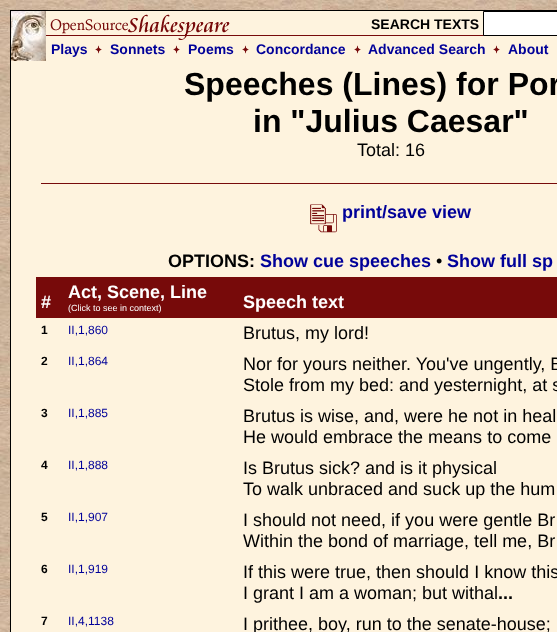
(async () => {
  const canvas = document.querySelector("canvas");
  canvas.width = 557;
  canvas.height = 632;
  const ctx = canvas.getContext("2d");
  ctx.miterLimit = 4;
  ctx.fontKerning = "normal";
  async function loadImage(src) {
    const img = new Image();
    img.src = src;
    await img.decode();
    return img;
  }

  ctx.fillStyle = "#ffffff";
  ctx.fillRect(0, 0, 557, 632);
  ctx.drawImage(await loadImage("img/1.png"), 0, 0, 557, 632);
  ctx.fillStyle = "#fef3de";
  ctx.fillRect(11, 61, 546, 571);
  ctx.strokeStyle = "#000000";
  ctx.strokeRect(10.5, 10.5, 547, 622);
  ctx.drawImage(await loadImage("img/2.png"), 11, 11, 546, 50);
  ctx.fillStyle = "#ffffff";
  ctx.beginPath();
  ctx.rect(483.5, 11.5, 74, 24);
  ctx.fill();
  ctx.stroke();
  ctx.drawImage(await loadImage("img/3.png"), 95, 45, 7, 9);
  ctx.drawImage(await loadImage("img/3.png"), 173, 45, 7, 9);
  ctx.drawImage(await loadImage("img/3.png"), 242, 45, 7, 9);
  ctx.drawImage(await loadImage("img/3.png"), 354, 45, 7, 9);
  ctx.drawImage(await loadImage("img/3.png"), 493, 45, 7, 9);
  ctx.fillStyle = "#770a0a";
  ctx.fillRect(41, 183, 516, 1);
  ctx.drawImage(await loadImage("img/4.png"), 310, 204, 27, 29);
  ctx.fillRect(36, 277, 521, 41);
  ctx.font = "bold 14px Liberation Sans";
  ctx.fillStyle = "#000000";
  ctx.fillText("SEARCH TEXTS", 371, 29);
  ctx.fillStyle = "#000099";
  for (const [text, x, y] of [
    ["Plays", 51, 54],
    ["Sonnets", 110, 54],
    ["Poems", 188, 54],
    ["Concordance", 256, 54],
    ["Advanced Search", 368, 54],
    ["About", 508, 54],
  ]) {
    ctx.fillText(text, x, y);
  }
  ctx.font = "bold 32px Liberation Sans";
  ctx.fillStyle = "#000000";
  ctx.fillText("Speeches (Lines) for Por", 184, 95);
  ctx.fillText("in \"Julius Caesar\"", 253, 132);
  ctx.font = "18px Liberation Sans";
  ctx.fillText("Total: 16", 357, 156);
  ctx.font = "bold 18px Liberation Sans";
  ctx.fillStyle = "#000099";
  ctx.fillText("print/save view", 342, 218);
  ctx.fillStyle = "#000000";
  ctx.fillText("OPTIONS:", 168, 267);
  ctx.fillStyle = "#000099";
  ctx.fillText("Show cue speeches", 260, 267);
  ctx.font = "18px Liberation Sans";
  ctx.fillStyle = "#000000";
  ctx.fillText("•", 436, 267);
  ctx.font = "bold 18px Liberation Sans";
  ctx.fillStyle = "#000099";
  ctx.fillText("Show full sp", 447, 267);
  ctx.fillStyle = "#ffffff";
  ctx.fillText("#", 41, 308);
  ctx.fillText("Act, Scene, Line", 68, 298);
  ctx.font = "9px Liberation Sans";
  ctx.fillText("(Click to see in context)", 68, 311);
  ctx.font = "bold 18px Liberation Sans";
  ctx.fillText("Speech text", 243, 308);
  ctx.font = "bold 12px Liberation Sans";
  ctx.fillStyle = "#000000";
  ctx.fillText("1", 41, 334);
  ctx.font = "12px Liberation Sans";
  ctx.fillStyle = "#000099";
  ctx.fillText("II,1,860", 68, 334);
  ctx.font = "18px Liberation Sans";
  ctx.fillStyle = "#000000";
  ctx.fillText("Brutus, my lord!", 243, 339);
  ctx.font = "bold 12px Liberation Sans";
  ctx.fillText("2", 41, 365);
  ctx.font = "12px Liberation Sans";
  ctx.fillStyle = "#000099";
  ctx.fillText("II,1,864", 68, 365);
  ctx.font = "18px Liberation Sans";
  ctx.fillStyle = "#000000";
  ctx.fillText("Nor for yours neither. You've ungently, B", 243, 370);
  ctx.fillText("Stole from my bed: and yesternight, at s", 243, 391);
  ctx.font = "bold 12px Liberation Sans";
  ctx.fillText("3", 41, 417);
  ctx.font = "12px Liberation Sans";
  ctx.fillStyle = "#000099";
  ctx.fillText("II,1,885", 68, 417);
  ctx.font = "18px Liberation Sans";
  ctx.fillStyle = "#000000";
  ctx.fillText("Brutus is wise, and, were he not in heal", 243, 422);
  ctx.fillText("He would embrace the means to come", 243, 443);
  ctx.font = "bold 12px Liberation Sans";
  ctx.fillText("4", 41, 469);
  ctx.font = "12px Liberation Sans";
  ctx.fillStyle = "#000099";
  ctx.fillText("II,1,888", 68, 469);
  ctx.font = "18px Liberation Sans";
  ctx.fillStyle = "#000000";
  ctx.fillText("Is Brutus sick? and is it physical", 243, 474);
  ctx.fillText("To walk unbraced and suck up the hum", 243, 495);
  ctx.font = "bold 12px Liberation Sans";
  ctx.fillText("5", 41, 521);
  ctx.font = "12px Liberation Sans";
  ctx.fillStyle = "#000099";
  ctx.fillText("II,1,907", 68, 521);
  ctx.font = "18px Liberation Sans";
  ctx.fillStyle = "#000000";
  ctx.fillText("I should not need, if you were gentle Br", 243, 526);
  ctx.fillText("Within the bond of marriage, tell me, Br", 243, 547);
  ctx.font = "bold 12px Liberation Sans";
  ctx.fillText("6", 41, 573);
  ctx.font = "12px Liberation Sans";
  ctx.fillStyle = "#000099";
  ctx.fillText("II,1,919", 68, 573);
  ctx.font = "18px Liberation Sans";
  ctx.fillStyle = "#000000";
  ctx.fillText("If this were true, then should I know this", 243, 578);
  ctx.fillText("I grant I am a woman; but withal", 243, 599);
  ctx.font = "bold 18px Liberation Sans";
  ctx.fillText("...", 498, 599);
  ctx.font = "bold 12px Liberation Sans";
  ctx.fillText("7", 41, 625);
  ctx.font = "12px Liberation Sans";
  ctx.fillStyle = "#000099";
  ctx.fillText("II,4,1138", 68, 625);
  ctx.font = "18px Liberation Sans";
  ctx.fillStyle = "#000000";
  ctx.fillText("I prithee, boy, run to the senate-house;", 243, 630);
})();
